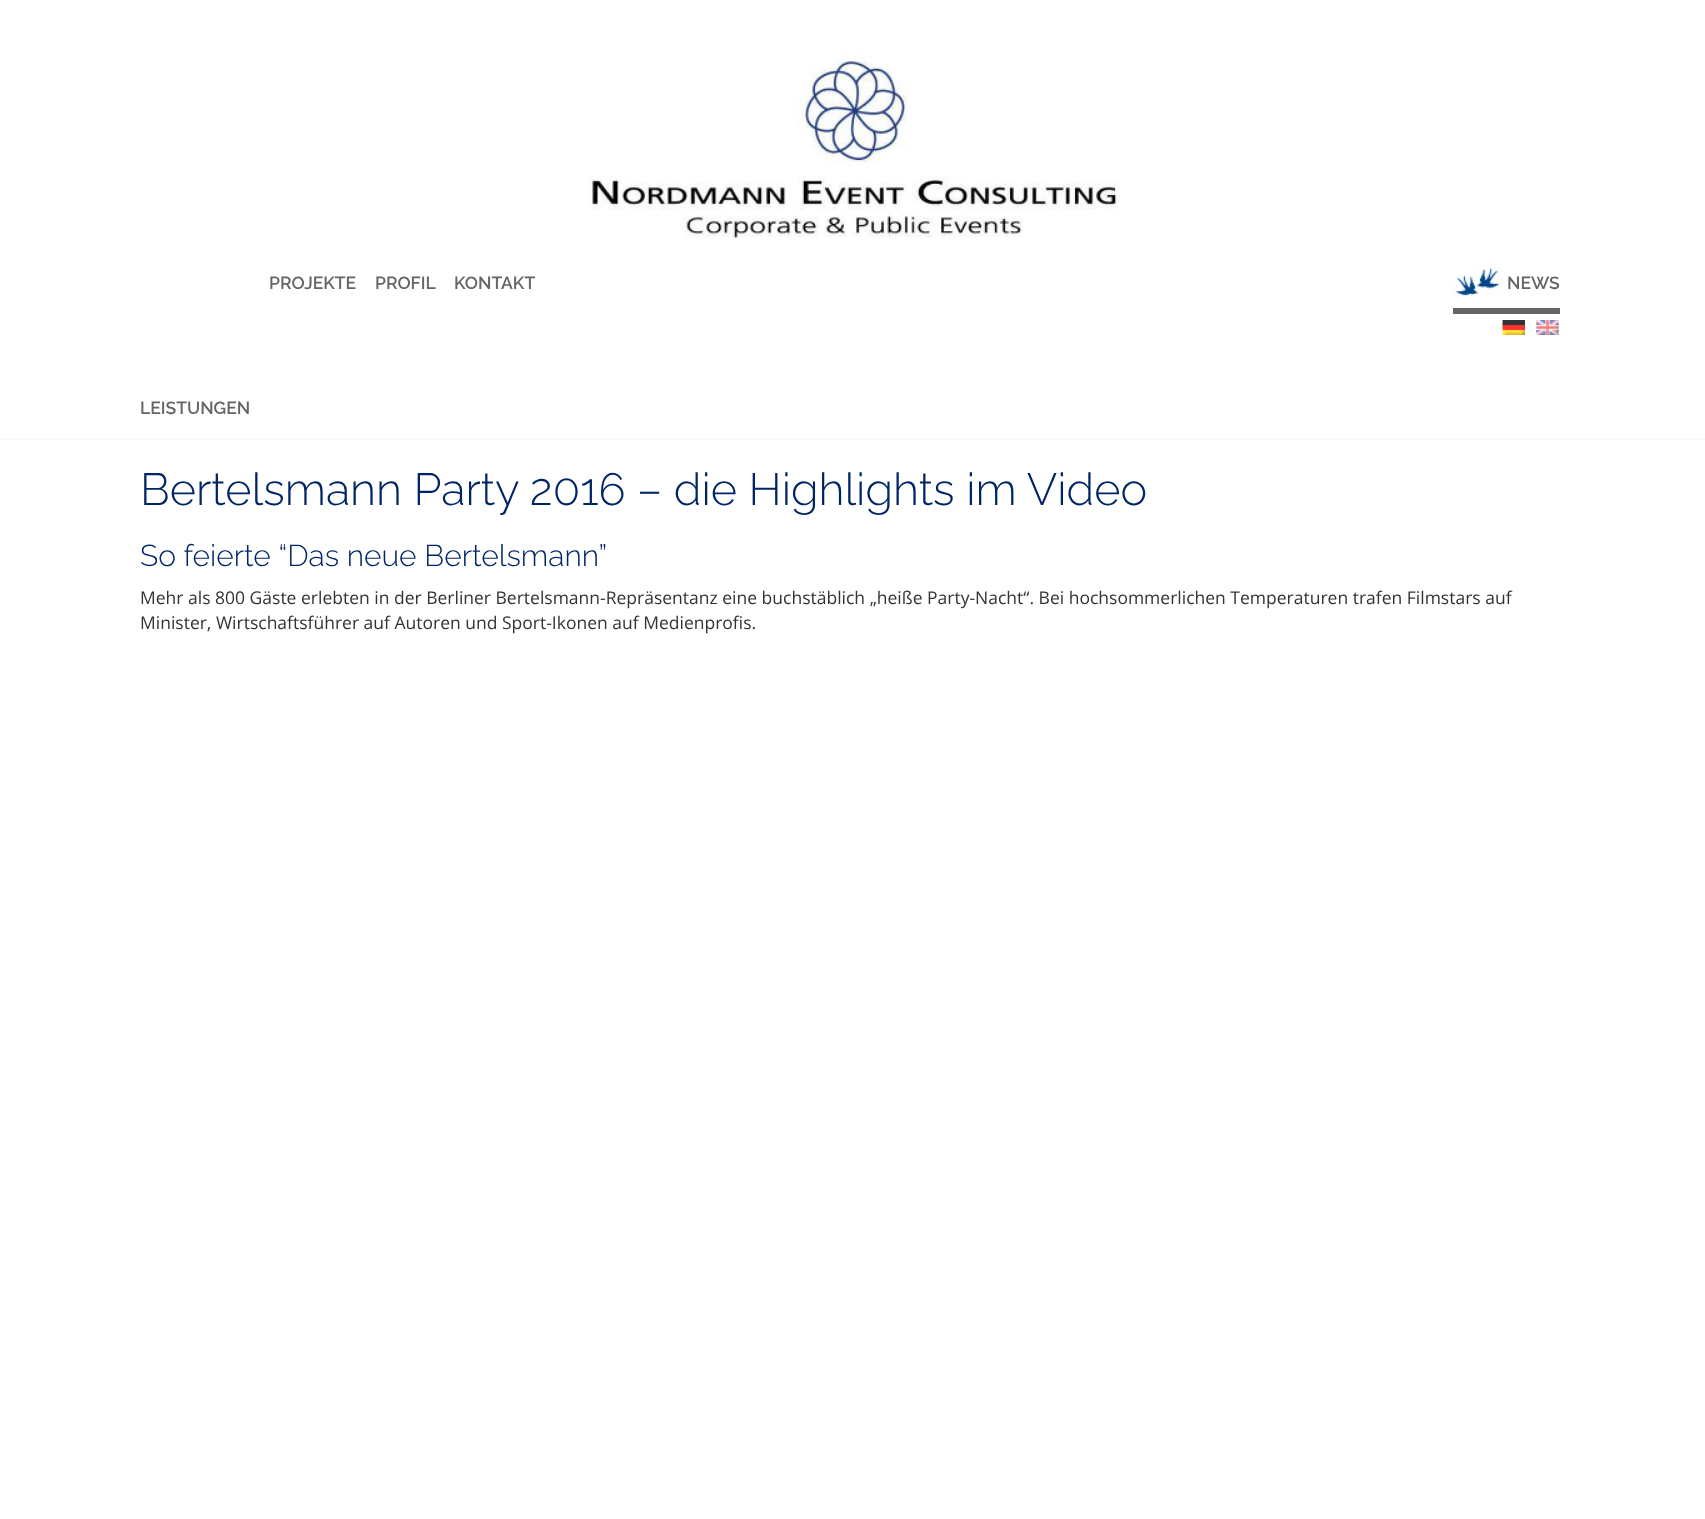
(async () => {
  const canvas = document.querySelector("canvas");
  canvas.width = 1705;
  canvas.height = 1519;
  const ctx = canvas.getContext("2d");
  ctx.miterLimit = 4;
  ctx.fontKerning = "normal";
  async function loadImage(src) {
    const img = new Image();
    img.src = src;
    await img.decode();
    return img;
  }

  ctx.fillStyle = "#ffffff";
  ctx.fillRect(0, 0, 1705, 1519);
  ctx.drawImage(await loadImage("img/1.png"), 588, 54, 529, 184);
  ctx.drawImage(await loadImage("img/2.png"), 1453, 265, 50, 31);
  ctx.fillStyle = "#666466";
  ctx.fillRect(1453, 308, 107, 6);
  ctx.drawImage(await loadImage("img/3.png"), 1502, 320, 23, 15);
  ctx.drawImage(await loadImage("img/4.png"), 1536, 320, 23, 15);
  ctx.fillStyle = "#f8f8f8";
  ctx.beginPath();
  ctx.roundRect(0, 439, 1705, 1, 0.5);
  ctx.fill();
  ctx.font = "600 17.5px Raleway";
  ctx.fillStyle = "#666466";
  for (const [text, x, y] of [
    ["PROJEKTE", 269, 289],
    ["PROFIL", 375, 289],
    ["KONTAKT", 454, 289],
    ["LEISTUNGEN", 140, 414],
    ["NEWS", 1507, 289],
  ]) {
    ctx.fillText(text, x, y);
  }
  ctx.font = "300 45px Raleway";
  ctx.fillStyle = "#002566";
  ctx.fillText("Bertelsmann Party 2016 – die Highlights im Video", 140, 505);
  ctx.font = "300 30px Raleway";
  ctx.fillText("So feierte “Das neue Bertelsmann”", 140, 566);
  ctx.font = "17.5px Open Sans";
  ctx.fillStyle = "#333333";
  ctx.fillText("Mehr als 800 Gäste erlebten in der Berliner Bertelsmann-Repräsentanz eine buchstäblich „heiße Party-Nacht“. Bei hochsommerlichen Temperaturen trafen Filmstars auf", 140, 604);
  ctx.fillText("Minister, Wirtschaftsführer auf Autoren und Sport-Ikonen auf Medienprofis.", 140, 629);
})();
